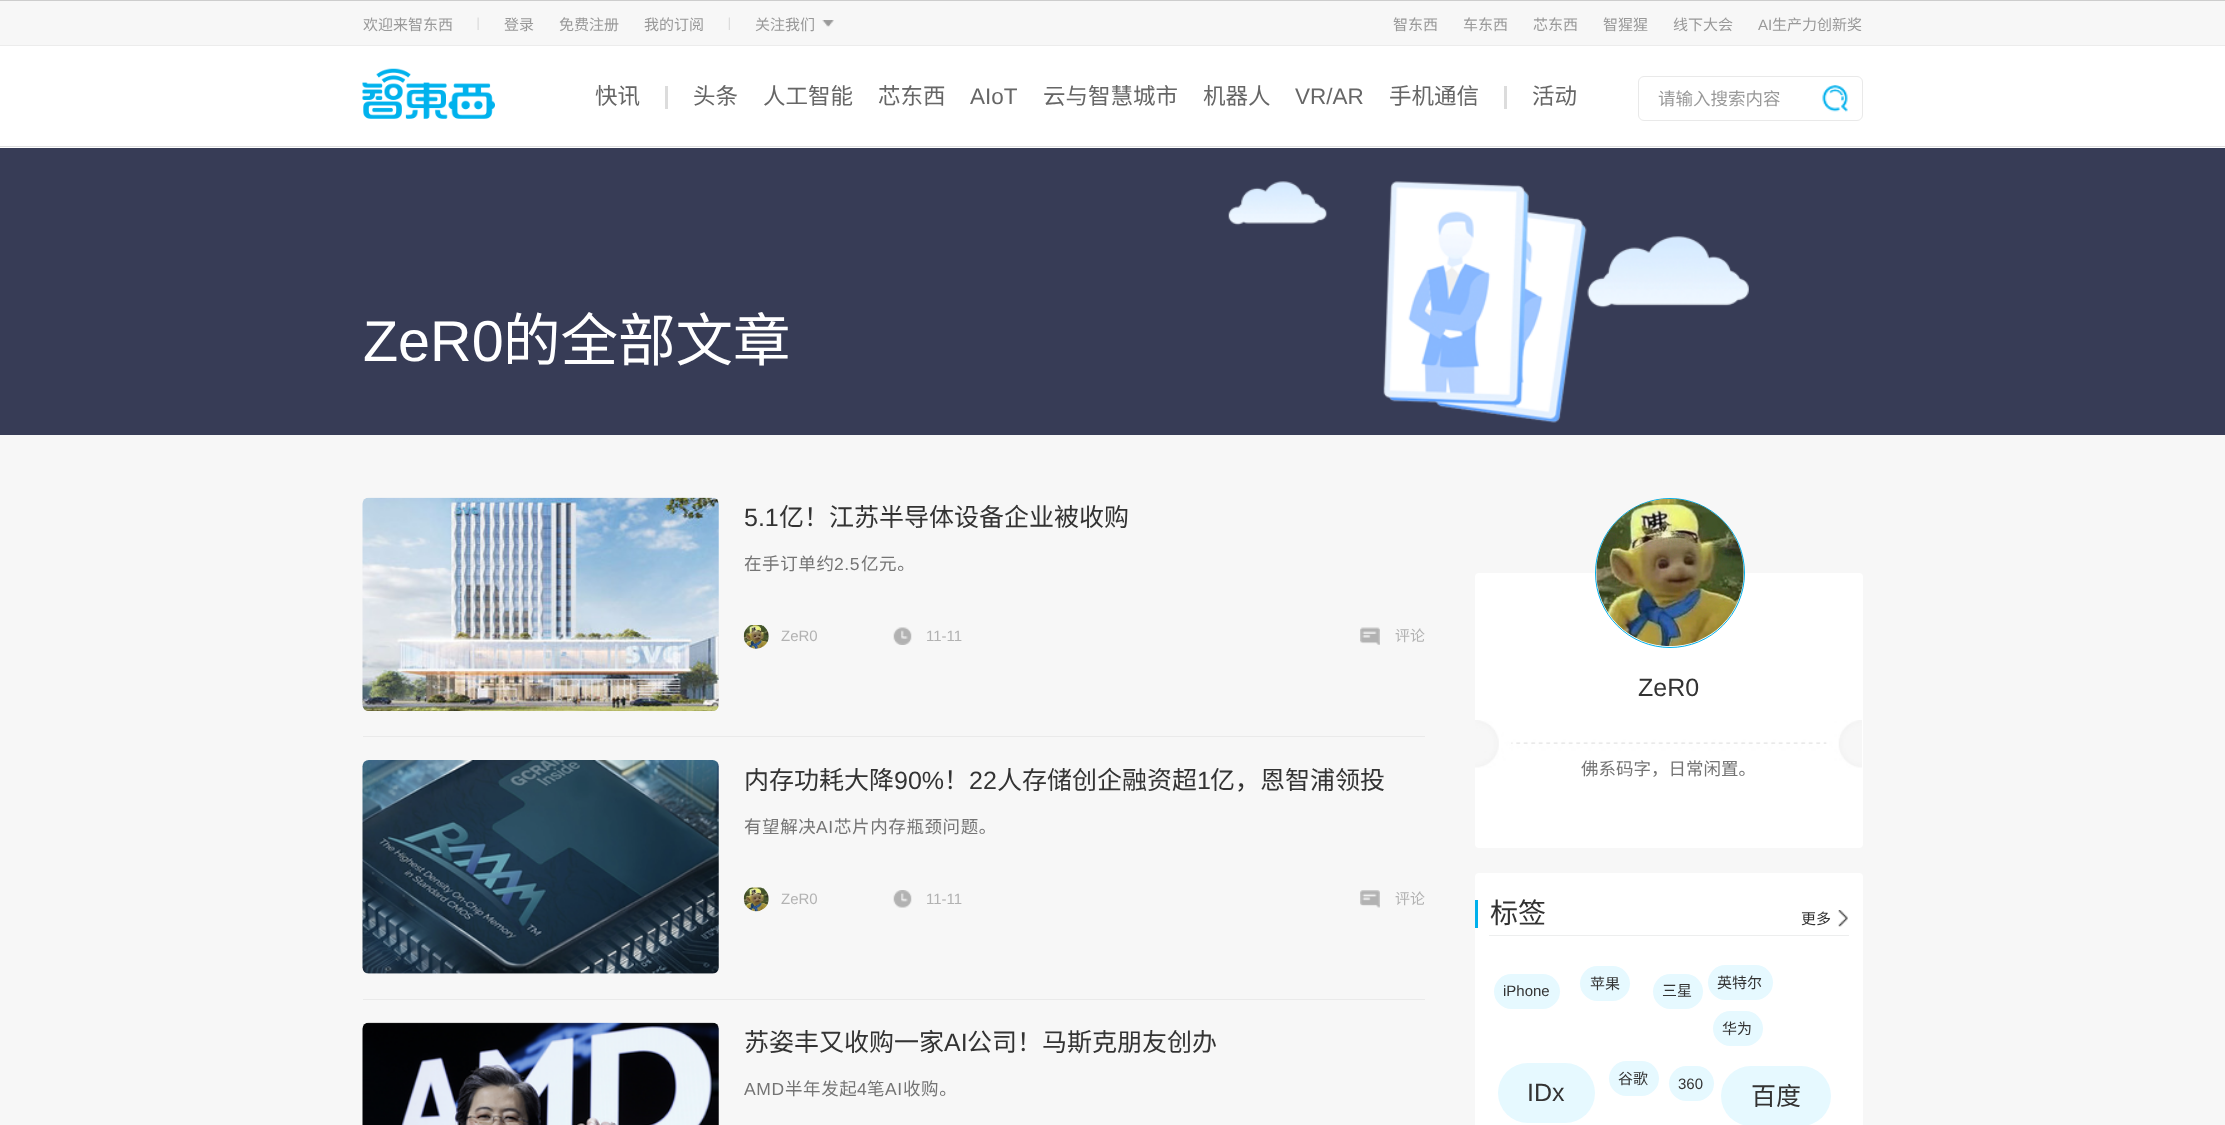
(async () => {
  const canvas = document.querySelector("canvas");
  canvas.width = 2225;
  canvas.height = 1125;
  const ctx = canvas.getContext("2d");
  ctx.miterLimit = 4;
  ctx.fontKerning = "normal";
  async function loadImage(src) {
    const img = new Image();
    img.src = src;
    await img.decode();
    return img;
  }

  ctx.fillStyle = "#f7f7f7";
  ctx.fillRect(0, 0, 2225, 1125);
  ctx.fillStyle = "#cdcdcd";
  ctx.fillRect(0, 0, 2225, 1);
  ctx.fillStyle = "#ececec";
  ctx.fillRect(0, 45, 2225, 1);
  ctx.drawImage(await loadImage("img/1.png"), 477, 17, 2, 13);
  ctx.drawImage(await loadImage("img/2.png"), 728, 17, 2, 13);
  ctx.drawImage(await loadImage("img/3.png"), 822, 20, 12, 7);
  ctx.fillStyle = "#ffffff";
  ctx.fillRect(0, 46, 2225, 102);
  ctx.fillStyle = "#dfdfdf";
  ctx.fillRect(0, 146, 2225, 1);
  ctx.drawImage(await loadImage("img/4.png"), 362, 68, 133, 51);
  ctx.fillStyle = "#dcdcdc";
  ctx.fillRect(665, 86, 3, 23);
  ctx.fillRect(1504, 86, 3, 23);
  ctx.beginPath();
  ctx.roundRect(1638.5, 76.5, 224, 44, 5.5);
  ctx.strokeStyle = "#e9e9e9";
  ctx.stroke();
  ctx.drawImage(await loadImage("img/5.png"), 1822, 85, 26, 27);
  ctx.drawImage(await loadImage("img/6.png"), 0, 148, 2225, 287);
  ctx.drawImage(await loadImage("img/7.png"), 362, 497, 357, 214);
  ctx.drawImage(await loadImage("img/8.png"), 743, 625, 26, 24);
  ctx.drawImage(await loadImage("img/9.png"), 893, 627, 19, 18);
  ctx.drawImage(await loadImage("img/10.png"), 1360, 627, 20, 18);
  ctx.fillStyle = "#eaeaea";
  ctx.fillRect(363, 736, 1062, 1);
  ctx.drawImage(await loadImage("img/11.png"), 362, 760, 357, 214);
  ctx.drawImage(await loadImage("img/12.png"), 743, 887, 26, 25);
  ctx.drawImage(await loadImage("img/13.png"), 893, 890, 19, 18);
  ctx.drawImage(await loadImage("img/14.png"), 1360, 890, 20, 18);
  ctx.fillRect(363, 999, 1062, 1);
  ctx.drawImage(await loadImage("img/15.png"), 362, 1022, 357, 103);
  ctx.fillStyle = "#ffffff";
  ctx.beginPath();
  ctx.roundRect(1475, 573, 388, 275, 4);
  ctx.fill();
  ctx.drawImage(await loadImage("img/16.png"), 1475, 720, 387, 48);
  ctx.beginPath();
  ctx.arc(1670, 573, 74.5, 0, Math.PI * 2);
  ctx.strokeStyle = "#00b0ec";
  ctx.stroke();
  ctx.drawImage(await loadImage("img/17.png"), 1596, 498, 148, 149);
  ctx.beginPath();
  ctx.roundRect(1475, 873, 388, 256, 4);
  ctx.fill();
  ctx.fillStyle = "#00b0ec";
  ctx.fillRect(1475, 900, 3, 28);
  ctx.drawImage(await loadImage("img/18.png"), 1838, 910, 10, 17);
  ctx.fillStyle = "#edeeee";
  ctx.fillRect(1489, 935, 360, 1);
  ctx.fillStyle = "#e6f9ff";
  ctx.beginPath();
  ctx.roundRect(1494, 974, 66, 35, 17.5);
  ctx.fill();
  ctx.beginPath();
  ctx.roundRect(1580, 966, 50, 35, 17.5);
  ctx.fill();
  ctx.beginPath();
  ctx.roundRect(1653, 974, 50, 35, 17.5);
  ctx.fill();
  ctx.beginPath();
  ctx.roundRect(1708, 965, 65, 35, 17.5);
  ctx.fill();
  ctx.beginPath();
  ctx.roundRect(1713, 1011, 50, 35, 17.5);
  ctx.fill();
  ctx.beginPath();
  ctx.roundRect(1498, 1063, 97, 60, 30);
  ctx.fill();
  ctx.beginPath();
  ctx.roundRect(1609, 1061, 50, 35, 17.5);
  ctx.fill();
  ctx.beginPath();
  ctx.roundRect(1669, 1066, 45, 35, 17.5);
  ctx.fill();
  ctx.beginPath();
  ctx.roundRect(1721, 1066, 110, 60, 30);
  ctx.fill();
  ctx.font = "15px Noto Sans CJK SC";
  ctx.fillStyle = "#999999";
  for (const [text, x, y] of [
    ["欢迎来智东西", 363, 30],
    ["登录", 504, 30],
    ["免费注册", 559, 30],
    ["我的订阅", 644, 30],
    ["关注我们", 755, 30],
    ["智东西", 1393, 30],
    ["车东西", 1463, 30],
    ["芯东西", 1533, 30],
    ["智猩猩", 1603, 30],
    ["线下大会", 1673, 30],
  ]) {
    ctx.fillText(text, x, y);
  }
  ctx.font = "15px Liberation Sans";
  ctx.fillText("AI", 1758, 30);
  ctx.font = "15px Noto Sans CJK SC";
  ctx.fillText("生产力创新奖", 1772, 30);
  ctx.font = "22.5px Noto Sans CJK SC";
  ctx.fillStyle = "#666666";
  for (const [text, x, y] of [
    ["快讯", 595, 104],
    ["头条", 693, 104],
    ["人工智能", 763, 104],
    ["芯东西", 878, 104],
  ]) {
    ctx.fillText(text, x, y);
  }
  ctx.font = "22.5px Liberation Sans";
  ctx.fillText("AIoT", 970, 104);
  ctx.font = "22.5px Noto Sans CJK SC";
  ctx.fillText("云与智慧城市", 1043, 104);
  ctx.fillText("机器人", 1203, 104);
  ctx.font = "22.5px Liberation Sans";
  ctx.fillText("VR/AR", 1295, 104);
  ctx.font = "22.5px Noto Sans CJK SC";
  ctx.fillText("手机通信", 1389, 104);
  ctx.fillText("活动", 1532, 104);
  ctx.font = "17.5px Noto Sans CJK SC";
  ctx.fillStyle = "#999999";
  ctx.fillText("请输入搜索内容", 1658, 105);
  ctx.font = "57.5px Liberation Sans";
  ctx.fillStyle = "#ffffff";
  ctx.fillText("ZeR0", 363, 361);
  ctx.font = "57.5px Noto Sans CJK SC";
  ctx.fillText("的全部文章", 503, 361);
  ctx.font = "25px Liberation Sans";
  ctx.fillStyle = "#333333";
  ctx.fillText("5.1", 744, 526);
  ctx.font = "25px Noto Sans CJK SC";
  ctx.fillText("亿！江苏半导体设备企业被收购", 779, 526);
  ctx.letterSpacing = "0.6px";
  ctx.font = "17.5px Noto Sans CJK SC";
  ctx.fillStyle = "#747474";
  ctx.fillText("在手订单约", 744, 570);
  ctx.font = "17.5px Liberation Sans";
  ctx.fillText("2.5", 834, 570);
  ctx.font = "17.5px Noto Sans CJK SC";
  ctx.fillText("亿元。", 861, 570);
  ctx.letterSpacing = "0px";
  ctx.font = "15px Liberation Sans";
  ctx.fillStyle = "#b2b2b2";
  ctx.fillText("ZeR0", 781, 641);
  ctx.fillText("11-11", 926, 641);
  ctx.font = "15px Noto Sans CJK SC";
  ctx.fillText("评论", 1395, 641);
  ctx.font = "25px Noto Sans CJK SC";
  ctx.fillStyle = "#333333";
  ctx.fillText("内存功耗大降", 744, 789);
  ctx.font = "25px Liberation Sans";
  ctx.fillText("90%", 894, 789);
  ctx.font = "25px Noto Sans CJK SC";
  ctx.fillText("！", 944, 789);
  ctx.font = "25px Liberation Sans";
  ctx.fillText("22", 969, 789);
  ctx.font = "25px Noto Sans CJK SC";
  ctx.fillText("人存储创企融资超", 997, 789);
  ctx.font = "25px Liberation Sans";
  ctx.fillText("1", 1197, 789);
  ctx.font = "25px Noto Sans CJK SC";
  ctx.fillText("亿，恩智浦领投", 1210, 789);
  ctx.letterSpacing = "0.6px";
  ctx.font = "17.5px Noto Sans CJK SC";
  ctx.fillStyle = "#747474";
  ctx.fillText("有望解决", 744, 833);
  ctx.font = "17.5px Liberation Sans";
  ctx.fillText("AI", 816, 833);
  ctx.font = "17.5px Noto Sans CJK SC";
  ctx.fillText("芯片内存瓶颈问题。", 834, 833);
  ctx.letterSpacing = "0px";
  ctx.font = "15px Liberation Sans";
  ctx.fillStyle = "#b2b2b2";
  ctx.fillText("ZeR0", 781, 904);
  ctx.fillText("11-11", 926, 904);
  ctx.font = "15px Noto Sans CJK SC";
  ctx.fillText("评论", 1395, 904);
  ctx.font = "25px Noto Sans CJK SC";
  ctx.fillStyle = "#333333";
  ctx.fillText("苏姿丰又收购一家", 744, 1051);
  ctx.font = "25px Liberation Sans";
  ctx.fillText("AI", 944, 1051);
  ctx.font = "25px Noto Sans CJK SC";
  ctx.fillText("公司！马斯克朋友创办", 967, 1051);
  ctx.letterSpacing = "0.6px";
  ctx.font = "17.5px Liberation Sans";
  ctx.fillStyle = "#747474";
  ctx.fillText("AMD", 744, 1095);
  ctx.font = "17.5px Noto Sans CJK SC";
  ctx.fillText("半年发起", 785, 1095);
  ctx.font = "17.5px Liberation Sans";
  ctx.fillText("4", 857, 1095);
  ctx.font = "17.5px Noto Sans CJK SC";
  ctx.fillText("笔", 867, 1095);
  ctx.font = "17.5px Liberation Sans";
  ctx.fillText("AI", 885, 1095);
  ctx.font = "17.5px Noto Sans CJK SC";
  ctx.fillText("收购。", 903, 1095);
  ctx.letterSpacing = "0px";
  ctx.font = "25px Liberation Sans";
  ctx.fillStyle = "#333333";
  ctx.fillText("ZeR0", 1638, 696);
  ctx.font = "17.5px Noto Sans CJK SC";
  ctx.fillStyle = "#747474";
  ctx.fillText("佛系码字，日常闲置。", 1581, 775);
  ctx.font = "28px Noto Sans CJK SC";
  ctx.fillStyle = "#333333";
  ctx.fillText("标签", 1490, 923);
  ctx.font = "15px Noto Sans CJK SC";
  ctx.fillText("更多", 1801, 924);
  ctx.font = "15px Liberation Sans";
  ctx.fillText("iPhone", 1503, 996);
  ctx.font = "15px Noto Sans CJK SC";
  for (const [text, x, y] of [
    ["苹果", 1590, 989],
    ["三星", 1662, 996],
    ["英特尔", 1717, 988],
    ["华为", 1722, 1034],
  ]) {
    ctx.fillText(text, x, y);
  }
  ctx.font = "25px Liberation Sans";
  ctx.fillText("IDx", 1527, 1101);
  ctx.font = "15px Noto Sans CJK SC";
  ctx.fillText("谷歌", 1618, 1084);
  ctx.font = "15px Liberation Sans";
  ctx.fillText("360", 1678, 1089);
  ctx.font = "25px Noto Sans CJK SC";
  ctx.fillText("百度", 1751, 1105);
})();
